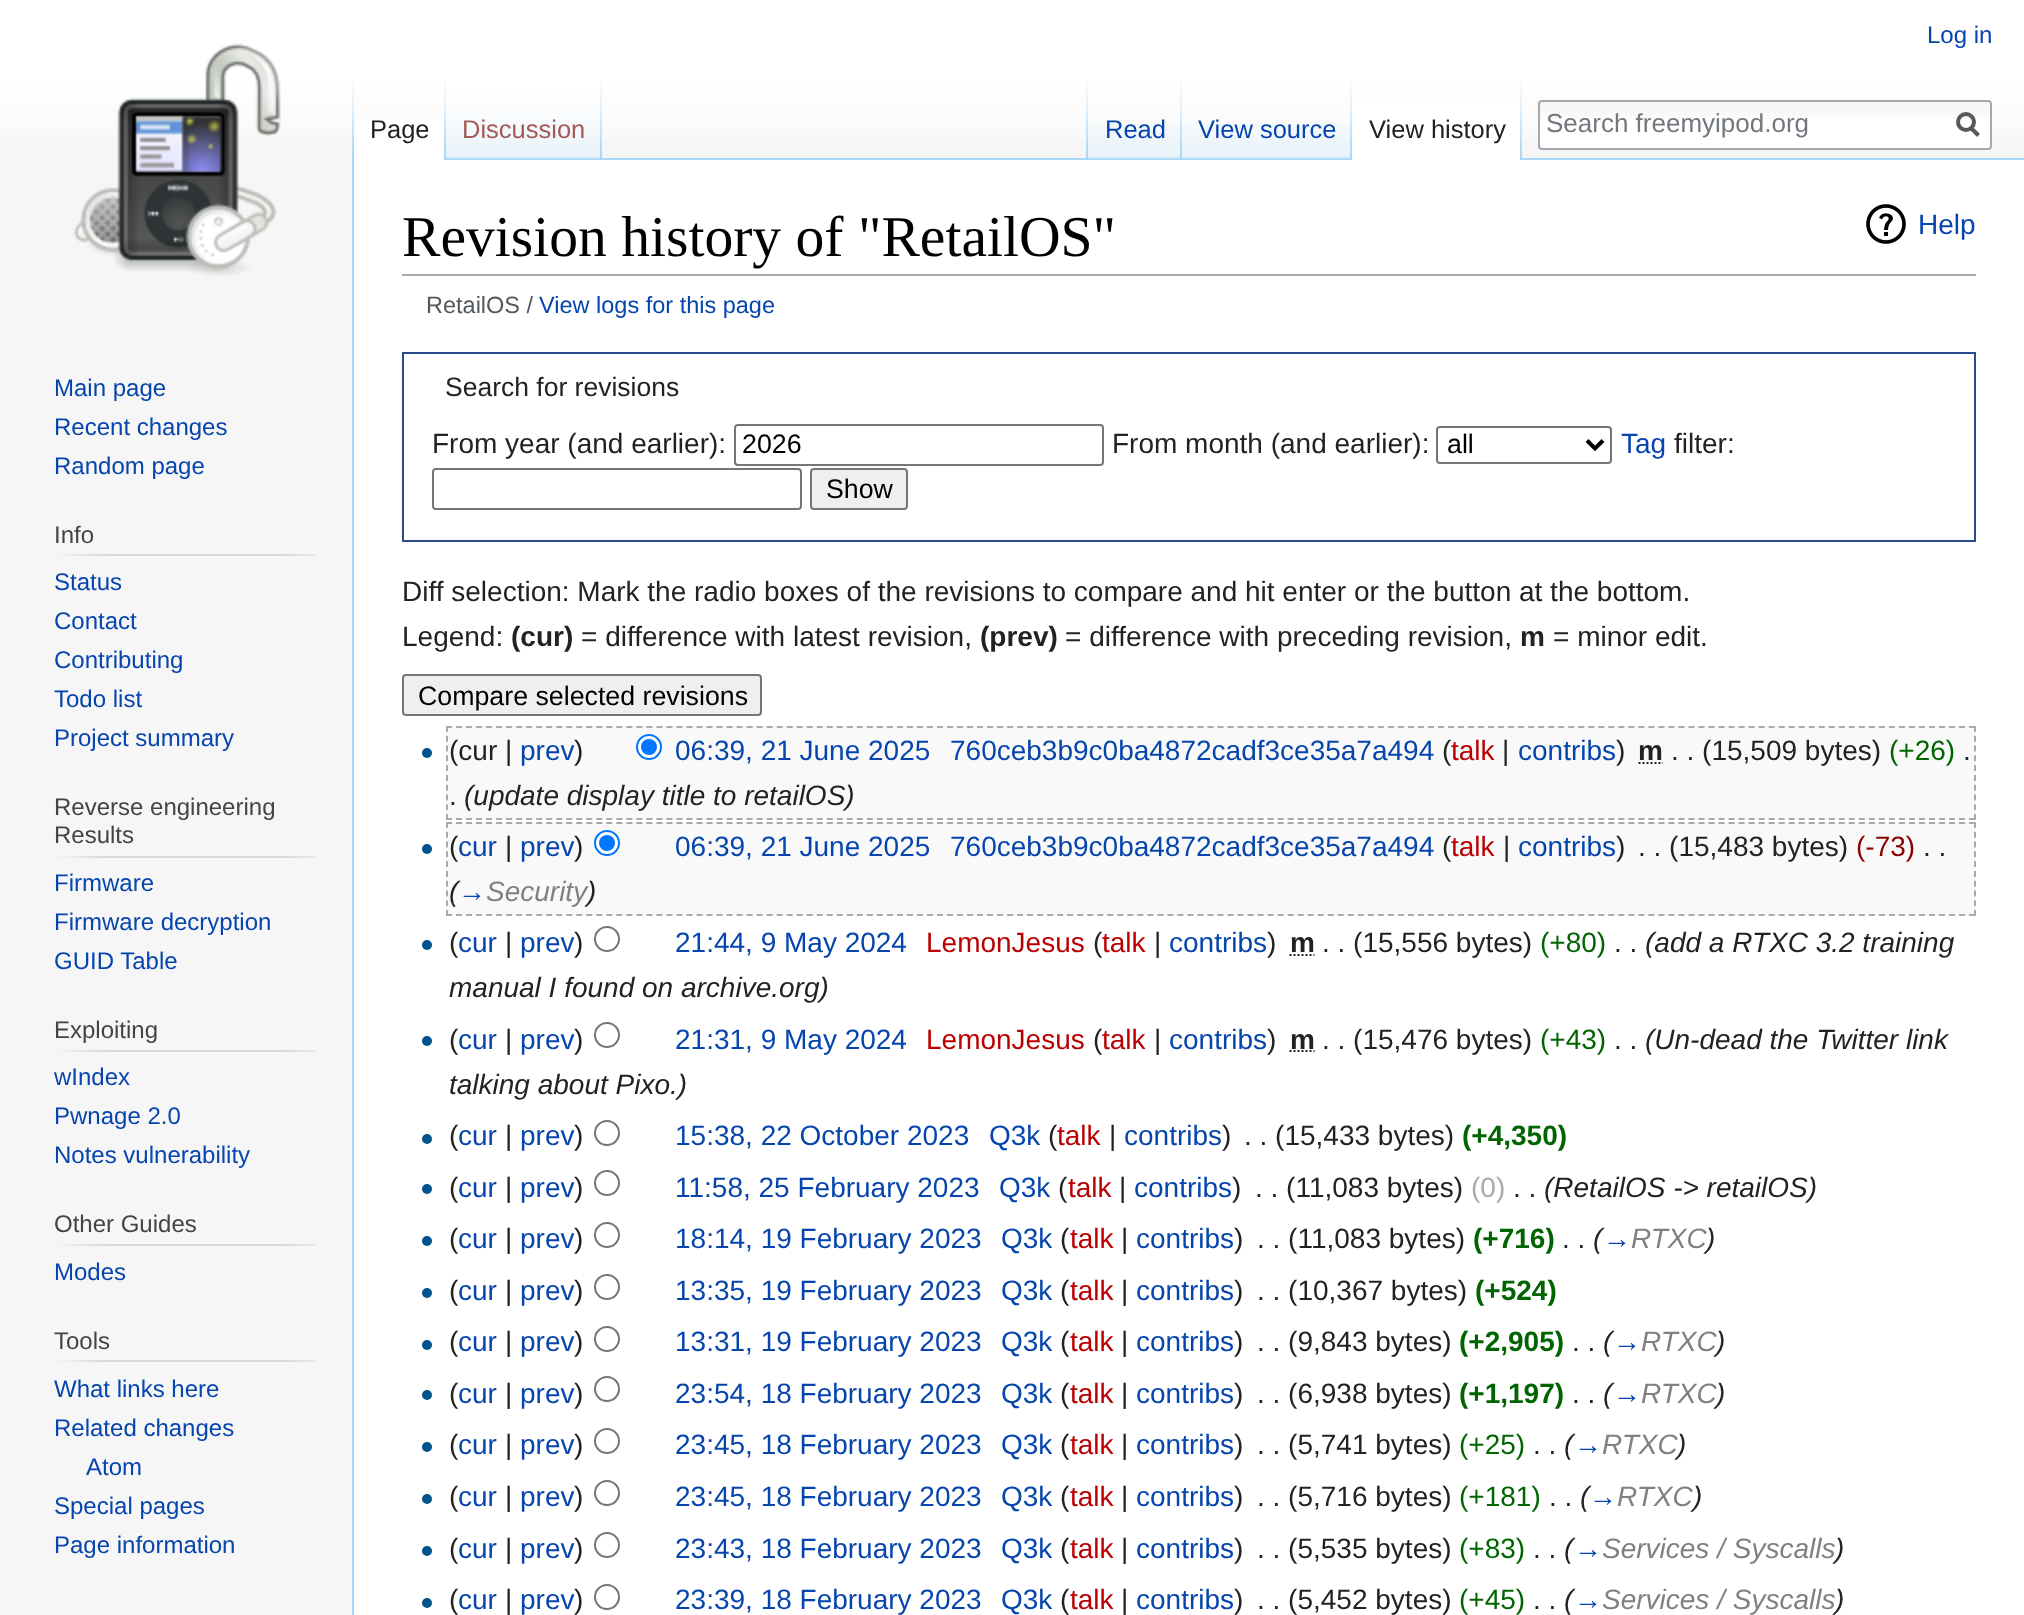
(async () => {
  const canvas = document.querySelector("canvas");
  canvas.width = 2024;
  canvas.height = 1615;
  const ctx = canvas.getContext("2d");
  ctx.miterLimit = 4;
  ctx.fontKerning = "normal";
  async function loadImage(src) {
    const img = new Image();
    img.src = src;
    await img.decode();
    return img;
  }
  let gradient, path;

  ctx.fillStyle = "#f6f6f6";
  ctx.fillRect(0, 0, 2024, 1615);
  gradient = ctx.createLinearGradient(1012, 0, 1012, 160);
  gradient.addColorStop(0.5, "#ffffff");
  gradient.addColorStop(1, "#f6f6f6");
  ctx.fillStyle = gradient;
  ctx.fillRect(0, 0, 2024, 138);
  ctx.drawImage(await loadImage("img/1.png"), 352, 80, 2, 78);
  ctx.fillStyle = "#ffffff";
  ctx.fillRect(354, 120, 90, 40);
  ctx.drawImage(await loadImage("img/2.png"), 444, 80, 2, 80);
  ctx.fillStyle = "#a7d7f9";
  ctx.fillRect(446, 158, 1578, 2);
  ctx.drawImage(await loadImage("img/3.png"), 446, 80, 154, 79);
  ctx.drawImage(await loadImage("img/4.png"), 600, 80, 2, 79);
  ctx.drawImage(await loadImage("img/1.png"), 1086, 80, 2, 78);
  ctx.drawImage(await loadImage("img/5.png"), 1088, 123, 92, 36);
  ctx.drawImage(await loadImage("img/4.png"), 1180, 80, 2, 79);
  ctx.drawImage(await loadImage("img/6.png"), 1182, 123, 168, 36);
  ctx.drawImage(await loadImage("img/4.png"), 1350, 80, 2, 79);
  ctx.fillStyle = "#ffffff";
  ctx.fillRect(1352, 102, 168, 58);
  ctx.drawImage(await loadImage("img/2.png"), 1520, 80, 2, 80);
  ctx.beginPath();
  ctx.roundRect(1538, 100, 454, 50, 4);
  ctx.fill();
  ctx.drawImage(await loadImage("img/7.png"), 1538, 102, 454, 17);
  ctx.beginPath();
  ctx.roundRect(1539, 101, 452, 48, 3);
  ctx.strokeStyle = "#a2a9b1";
  ctx.lineWidth = 2;
  ctx.stroke();
  path = new Path2D("M1978.5 135.5L1970.5 127.5");
  ctx.strokeStyle = "#54595d";
  ctx.lineWidth = 4;
  ctx.stroke(path);
  ctx.beginPath();
  ctx.arc(1966, 122, 8, 0, Math.PI * 2);
  ctx.stroke();
  ctx.drawImage(await loadImage("img/8.png"), 73, 43, 208, 233);
  ctx.drawImage(await loadImage("img/9.png"), 59, 554, 257, 2);
  ctx.drawImage(await loadImage("img/9.png"), 59, 856, 257, 2);
  ctx.drawImage(await loadImage("img/9.png"), 59, 1050, 257, 2);
  ctx.drawImage(await loadImage("img/9.png"), 59, 1244, 257, 2);
  ctx.drawImage(await loadImage("img/9.png"), 59, 1360, 257, 2);
  for (const [x, y, w, h, color] of [
    [354, 160, 1670, 1455, "#ffffff"],
    [352, 158, 2, 1457, "#a7d7f9"],
    [402, 274, 1574, 2, "#a2a9b1"],
  ]) {
    ctx.fillStyle = color;
    ctx.fillRect(x, y, w, h);
  }
  ctx.drawImage(await loadImage("img/10.png"), 1866, 204, 40, 40);
  ctx.strokeStyle = "#2a4b8d";
  ctx.lineWidth = 2;
  ctx.strokeRect(403, 353, 1572, 188);
  ctx.beginPath();
  ctx.roundRect(735, 425, 368, 40, 3);
  ctx.strokeStyle = "#767676";
  ctx.stroke();
  ctx.beginPath();
  ctx.roundRect(1437, 427, 174, 36, 3);
  ctx.stroke();
  path = new Path2D("M1587 440.5L1595 448.5L1603 440.5");
  ctx.strokeStyle = "#000000";
  ctx.lineWidth = 4;
  ctx.stroke(path);
  ctx.beginPath();
  ctx.roundRect(433, 469, 368, 40, 3);
  ctx.strokeStyle = "#767676";
  ctx.lineWidth = 2;
  ctx.stroke();
  ctx.fillStyle = "#efefef";
  ctx.beginPath();
  ctx.roundRect(811, 469, 96, 40, 3);
  ctx.fill();
  ctx.stroke();
  ctx.beginPath();
  ctx.roundRect(403, 675, 358, 40, 3);
  ctx.fill();
  ctx.stroke();
  ctx.fillStyle = "#f9f9f9";
  ctx.fillRect(446, 726, 1530, 94);
  path = new Path2D("M446 727H1976");
  ctx.strokeStyle = "#aaaaaa";
  ctx.setLineDash([6, 4.02]);
  ctx.stroke(path);
  path = new Path2D("M1975 726V820");
  ctx.setLineDash([6, 3.78]);
  ctx.stroke(path);
  path = new Path2D("M446 819H1976");
  ctx.setLineDash([6, 4.02]);
  ctx.stroke(path);
  path = new Path2D("M447 726V820");
  ctx.setLineDash([6, 3.78]);
  ctx.stroke(path);
  ctx.drawImage(await loadImage("img/11.png"), 422, 748, 10, 10);
  ctx.fillStyle = "#ffffff";
  ctx.beginPath();
  ctx.arc(649, 747, 12, 0, Math.PI * 2);
  ctx.fill();
  ctx.strokeStyle = "#0075ff";
  ctx.setLineDash([]);
  ctx.stroke();
  ctx.fillStyle = "#0075ff";
  ctx.beginPath();
  ctx.arc(649, 747, 8, 0, Math.PI * 2);
  ctx.fill();
  path = new Path2D("M1638.5 763H1663");
  ctx.strokeStyle = "#222222";
  ctx.setLineDash([2, 2]);
  ctx.stroke(path);
  ctx.fillStyle = "#f9f9f9";
  ctx.fillRect(446, 822, 1530, 94);
  path = new Path2D("M446 823H1976");
  ctx.strokeStyle = "#aaaaaa";
  ctx.setLineDash([6, 4.02]);
  ctx.stroke(path);
  path = new Path2D("M1975 822V916");
  ctx.setLineDash([6, 3.78]);
  ctx.stroke(path);
  path = new Path2D("M446 915H1976");
  ctx.setLineDash([6, 4.02]);
  ctx.stroke(path);
  path = new Path2D("M447 822V916");
  ctx.setLineDash([6, 3.78]);
  ctx.stroke(path);
  ctx.drawImage(await loadImage("img/11.png"), 422, 844, 10, 10);
  ctx.fillStyle = "#ffffff";
  ctx.beginPath();
  ctx.arc(607, 843, 12, 0, Math.PI * 2);
  ctx.fill();
  ctx.strokeStyle = "#0075ff";
  ctx.setLineDash([]);
  ctx.stroke();
  ctx.fillStyle = "#0075ff";
  ctx.beginPath();
  ctx.arc(607, 843, 8, 0, Math.PI * 2);
  ctx.fill();
  ctx.drawImage(await loadImage("img/11.png"), 422, 940, 10, 10);
  ctx.beginPath();
  ctx.arc(607, 939, 12, 0, Math.PI * 2);
  ctx.strokeStyle = "#767676";
  ctx.stroke();
  path = new Path2D("M1289.5 955H1314.5");
  ctx.strokeStyle = "#222222";
  ctx.setLineDash([2, 2]);
  ctx.stroke(path);
  ctx.drawImage(await loadImage("img/11.png"), 422, 1036, 10, 10);
  ctx.beginPath();
  ctx.arc(607, 1035, 12, 0, Math.PI * 2);
  ctx.strokeStyle = "#767676";
  ctx.setLineDash([]);
  ctx.stroke();
  path = new Path2D("M1289.5 1051H1314.5");
  ctx.strokeStyle = "#222222";
  ctx.setLineDash([2, 2]);
  ctx.stroke(path);
  ctx.drawImage(await loadImage("img/11.png"), 422, 1134, 10, 10);
  ctx.beginPath();
  ctx.arc(607, 1133, 12, 0, Math.PI * 2);
  ctx.strokeStyle = "#767676";
  ctx.setLineDash([]);
  ctx.stroke();
  ctx.drawImage(await loadImage("img/11.png"), 422, 1184, 10, 10);
  ctx.beginPath();
  ctx.arc(607, 1183, 12, 0, Math.PI * 2);
  ctx.stroke();
  ctx.drawImage(await loadImage("img/11.png"), 422, 1236, 10, 10);
  ctx.beginPath();
  ctx.arc(607, 1235, 12, 0, Math.PI * 2);
  ctx.stroke();
  ctx.drawImage(await loadImage("img/11.png"), 422, 1288, 10, 10);
  ctx.beginPath();
  ctx.arc(607, 1287, 12, 0, Math.PI * 2);
  ctx.stroke();
  ctx.drawImage(await loadImage("img/11.png"), 422, 1340, 10, 10);
  ctx.beginPath();
  ctx.arc(607, 1339, 12, 0, Math.PI * 2);
  ctx.stroke();
  ctx.drawImage(await loadImage("img/11.png"), 422, 1390, 10, 10);
  ctx.beginPath();
  ctx.arc(607, 1389, 12, 0, Math.PI * 2);
  ctx.stroke();
  ctx.drawImage(await loadImage("img/11.png"), 422, 1442, 10, 10);
  ctx.beginPath();
  ctx.arc(607, 1441, 12, 0, Math.PI * 2);
  ctx.stroke();
  ctx.drawImage(await loadImage("img/11.png"), 422, 1494, 10, 10);
  ctx.beginPath();
  ctx.arc(607, 1493, 12, 0, Math.PI * 2);
  ctx.stroke();
  ctx.drawImage(await loadImage("img/11.png"), 422, 1546, 10, 10);
  ctx.beginPath();
  ctx.arc(607, 1545, 12, 0, Math.PI * 2);
  ctx.stroke();
  ctx.drawImage(await loadImage("img/11.png"), 422, 1598, 10, 10);
  ctx.beginPath();
  ctx.arc(607, 1597, 12, 0, Math.PI * 2);
  ctx.stroke();
  ctx.font = "24px Liberation Sans";
  ctx.fillStyle = "#0645ad";
  ctx.fillText("Log in", 1927, 43);
  ctx.font = "25.5px Liberation Sans";
  ctx.fillStyle = "#222222";
  ctx.fillText("Page", 370, 138);
  ctx.fillStyle = "#a55858";
  ctx.fillText("Discussion", 462, 138);
  ctx.fillStyle = "#0645ad";
  ctx.fillText("Read", 1105, 138);
  ctx.fillText("View source", 1198, 138);
  ctx.fillStyle = "#222222";
  ctx.fillText("View history", 1369, 138);
  ctx.font = "26px Liberation Sans";
  ctx.fillStyle = "#72777d";
  ctx.fillText("Search freemyipod.org", 1546, 132);
  ctx.font = "24px Liberation Sans";
  ctx.fillStyle = "#0645ad";
  for (const [text, x, y] of [
    ["Main page", 54, 396],
    ["Recent changes", 54, 435],
    ["Random page", 54, 474],
  ]) {
    ctx.fillText(text, x, y);
  }
  ctx.fillStyle = "#444444";
  ctx.fillText("Info", 54, 543);
  ctx.fillStyle = "#0645ad";
  for (const [text, x, y] of [
    ["Status", 54, 590],
    ["Contact", 54, 629],
    ["Contributing", 54, 668],
    ["Todo list", 54, 707],
    ["Project summary", 54, 746],
  ]) {
    ctx.fillText(text, x, y);
  }
  ctx.fillStyle = "#444444";
  ctx.fillText("Reverse engineering", 54, 815);
  ctx.fillText("Results", 54, 843);
  ctx.fillStyle = "#0645ad";
  for (const [text, x, y] of [
    ["Firmware", 54, 891],
    ["Firmware decryption", 54, 930],
    ["GUID Table", 54, 969],
  ]) {
    ctx.fillText(text, x, y);
  }
  ctx.fillStyle = "#444444";
  ctx.fillText("Exploiting", 54, 1038);
  ctx.fillStyle = "#0645ad";
  for (const [text, x, y] of [
    ["wIndex", 54, 1085],
    ["Pwnage 2.0", 54, 1124],
    ["Notes vulnerability", 54, 1163],
  ]) {
    ctx.fillText(text, x, y);
  }
  ctx.fillStyle = "#444444";
  ctx.fillText("Other Guides", 54, 1232);
  ctx.fillStyle = "#0645ad";
  ctx.fillText("Modes", 54, 1280);
  ctx.fillStyle = "#444444";
  ctx.fillText("Tools", 54, 1349);
  ctx.fillStyle = "#0645ad";
  for (const [text, x, y] of [
    ["What links here", 54, 1397],
    ["Related changes", 54, 1436],
    ["Atom", 86, 1475],
    ["Special pages", 54, 1514],
    ["Page information", 54, 1553],
  ]) {
    ctx.fillText(text, x, y);
  }
  ctx.font = "57.6px Liberation Serif";
  ctx.fillStyle = "#000000";
  ctx.fillText("Revision history of \"RetailOS\"", 402, 256);
  ctx.font = "28px Liberation Sans";
  ctx.fillStyle = "#0645ad";
  ctx.fillText("Help", 1918, 234);
  ctx.font = "23.5px Liberation Sans";
  ctx.fillStyle = "#54595d";
  ctx.fillText("RetailOS /", 426, 313);
  ctx.fillStyle = "#0645ad";
  ctx.fillText("View logs for this page", 539, 313);
  ctx.font = "26.5px Liberation Sans";
  ctx.fillStyle = "#222222";
  ctx.fillText("Search for revisions", 445, 396);
  ctx.font = "28px Liberation Sans";
  ctx.fillText("From year (and earlier):", 432, 453);
  ctx.font = "26.75px Liberation Sans";
  ctx.fillStyle = "#000000";
  ctx.fillText("2026", 742, 453);
  ctx.font = "28px Liberation Sans";
  ctx.fillStyle = "#222222";
  ctx.fillText("From month (and earlier):", 1112, 453);
  ctx.font = "26.75px Liberation Sans";
  ctx.fillStyle = "#000000";
  ctx.fillText("all", 1447, 453);
  ctx.font = "28px Liberation Sans";
  ctx.fillStyle = "#0645ad";
  ctx.fillText("Tag", 1621, 453);
  ctx.fillStyle = "#222222";
  ctx.fillText("filter:", 1674, 453);
  ctx.font = "26.75px Liberation Sans";
  ctx.fillStyle = "#000000";
  ctx.fillText("Show", 826, 498);
  ctx.font = "28px Liberation Sans";
  ctx.fillStyle = "#222222";
  ctx.fillText("Diff selection: Mark the radio boxes of the revisions to compare and hit enter or the button at the bottom.", 402, 601);
  ctx.fillText("Legend:", 402, 646);
  ctx.font = "bold 28px Liberation Sans";
  ctx.fillText("(cur)", 511, 646);
  ctx.font = "28px Liberation Sans";
  ctx.fillText("= difference with latest revision,", 581, 646);
  ctx.font = "bold 28px Liberation Sans";
  ctx.fillText("(prev)", 980, 646);
  ctx.font = "28px Liberation Sans";
  ctx.fillText("= difference with preceding revision,", 1065, 646);
  ctx.font = "bold 28px Liberation Sans";
  ctx.fillText("m", 1520, 646);
  ctx.font = "28px Liberation Sans";
  ctx.fillText("= minor edit.", 1553, 646);
  ctx.font = "26.75px Liberation Sans";
  ctx.fillStyle = "#000000";
  ctx.fillText("Compare selected revisions", 418, 705);
  ctx.font = "28px Liberation Sans";
  ctx.fillStyle = "#222222";
  ctx.fillText("(cur |", 449, 760);
  ctx.fillStyle = "#0645ad";
  ctx.fillText("prev", 520, 760);
  ctx.fillStyle = "#222222";
  ctx.fillText(")", 574, 760);
  ctx.fillStyle = "#0645ad";
  ctx.fillText("06:39, 21 June 2025", 675, 760);
  ctx.fillText("760ceb3b9c0ba4872cadf3ce35a7a494", 950, 760);
  ctx.fillStyle = "#222222";
  ctx.fillText("(", 1442, 760);
  ctx.fillStyle = "#ba0000";
  ctx.fillText("talk", 1451, 760);
  ctx.fillStyle = "#222222";
  ctx.fillText("|", 1502, 760);
  ctx.fillStyle = "#0645ad";
  ctx.fillText("contribs", 1518, 760);
  ctx.fillStyle = "#222222";
  ctx.fillText(")", 1616, 760);
  ctx.font = "bold 28px Liberation Sans";
  ctx.fillText("m", 1638, 760);
  ctx.font = "28px Liberation Sans";
  ctx.fillText(". . (15,509 bytes)", 1671, 760);
  ctx.fillStyle = "#006400";
  ctx.fillText("(+26)", 1889, 760);
  ctx.fillStyle = "#222222";
  ctx.fillText(".", 1963, 760);
  ctx.fillText(".", 449, 805);
  ctx.font = "italic 28px Liberation Sans";
  ctx.fillText("(update display title to retailOS)", 464, 805);
  ctx.font = "28px Liberation Sans";
  ctx.fillText("(", 449, 856);
  ctx.fillStyle = "#0645ad";
  ctx.fillText("cur", 458, 856);
  ctx.fillStyle = "#222222";
  ctx.fillText("|", 505, 856);
  ctx.fillStyle = "#0645ad";
  ctx.fillText("prev", 520, 856);
  ctx.fillStyle = "#222222";
  ctx.fillText(")", 574, 856);
  ctx.fillStyle = "#0645ad";
  ctx.fillText("06:39, 21 June 2025", 675, 856);
  ctx.fillText("760ceb3b9c0ba4872cadf3ce35a7a494", 950, 856);
  ctx.fillStyle = "#222222";
  ctx.fillText("(", 1442, 856);
  ctx.fillStyle = "#ba0000";
  ctx.fillText("talk", 1451, 856);
  ctx.fillStyle = "#222222";
  ctx.fillText("|", 1503, 856);
  ctx.fillStyle = "#0645ad";
  ctx.fillText("contribs", 1518, 856);
  ctx.fillStyle = "#222222";
  ctx.fillText(")", 1616, 856);
  ctx.fillText(". . (15,483 bytes)", 1638, 856);
  ctx.fillStyle = "#8b0000";
  ctx.fillText("(-73)", 1856, 856);
  ctx.fillStyle = "#222222";
  ctx.fillText(". .", 1923, 856);
  ctx.font = "italic 28px Liberation Sans";
  ctx.fillText("(", 449, 901);
  ctx.fillStyle = "#0645ad";
  ctx.fillText("→", 458, 901);
  ctx.fillStyle = "#808080";
  ctx.fillText("Security", 486, 901);
  ctx.fillStyle = "#222222";
  ctx.fillText(")", 587, 901);
  ctx.font = "28px Liberation Sans";
  ctx.fillText("(", 449, 952);
  ctx.fillStyle = "#0645ad";
  ctx.fillText("cur", 458, 952);
  ctx.fillStyle = "#222222";
  ctx.fillText("|", 505, 952);
  ctx.fillStyle = "#0645ad";
  ctx.fillText("prev", 520, 952);
  ctx.fillStyle = "#222222";
  ctx.fillText(")", 574, 952);
  ctx.fillStyle = "#0645ad";
  ctx.fillText("21:44, 9 May 2024", 675, 952);
  ctx.fillStyle = "#ba0000";
  ctx.fillText("LemonJesus", 926, 952);
  ctx.fillStyle = "#222222";
  ctx.fillText("(", 1093, 952);
  ctx.fillStyle = "#ba0000";
  ctx.fillText("talk", 1102, 952);
  ctx.fillStyle = "#222222";
  ctx.fillText("|", 1154, 952);
  ctx.fillStyle = "#0645ad";
  ctx.fillText("contribs", 1169, 952);
  ctx.fillStyle = "#222222";
  ctx.fillText(")", 1267, 952);
  ctx.font = "bold 28px Liberation Sans";
  ctx.fillText("m", 1290, 952);
  ctx.font = "28px Liberation Sans";
  ctx.fillText(". . (15,556 bytes)", 1322, 952);
  ctx.fillStyle = "#006400";
  ctx.fillText("(+80)", 1540, 952);
  ctx.fillStyle = "#222222";
  ctx.fillText(". .", 1614, 952);
  ctx.font = "italic 28px Liberation Sans";
  ctx.fillText("(add a RTXC 3.2 training", 1645, 952);
  ctx.fillText("manual I found on archive.org)", 449, 997);
  ctx.font = "28px Liberation Sans";
  ctx.fillText("(", 449, 1049);
  ctx.fillStyle = "#0645ad";
  ctx.fillText("cur", 458, 1049);
  ctx.fillStyle = "#222222";
  ctx.fillText("|", 505, 1049);
  ctx.fillStyle = "#0645ad";
  ctx.fillText("prev", 520, 1049);
  ctx.fillStyle = "#222222";
  ctx.fillText(")", 574, 1049);
  ctx.fillStyle = "#0645ad";
  ctx.fillText("21:31, 9 May 2024", 675, 1049);
  ctx.fillStyle = "#ba0000";
  ctx.fillText("LemonJesus", 926, 1049);
  ctx.fillStyle = "#222222";
  ctx.fillText("(", 1093, 1049);
  ctx.fillStyle = "#ba0000";
  ctx.fillText("talk", 1102, 1049);
  ctx.fillStyle = "#222222";
  ctx.fillText("|", 1154, 1049);
  ctx.fillStyle = "#0645ad";
  ctx.fillText("contribs", 1169, 1049);
  ctx.fillStyle = "#222222";
  ctx.fillText(")", 1267, 1049);
  ctx.font = "bold 28px Liberation Sans";
  ctx.fillText("m", 1290, 1049);
  ctx.font = "28px Liberation Sans";
  ctx.fillText(". . (15,476 bytes)", 1322, 1049);
  ctx.fillStyle = "#006400";
  ctx.fillText("(+43)", 1540, 1049);
  ctx.fillStyle = "#222222";
  ctx.fillText(". .", 1614, 1049);
  ctx.font = "italic 28px Liberation Sans";
  ctx.fillText("(Un-dead the Twitter link", 1645, 1049);
  ctx.fillText("talking about Pixo.)", 449, 1094);
  ctx.font = "28px Liberation Sans";
  ctx.fillText("(", 449, 1145);
  ctx.fillStyle = "#0645ad";
  ctx.fillText("cur", 458, 1145);
  ctx.fillStyle = "#222222";
  ctx.fillText("|", 505, 1145);
  ctx.fillStyle = "#0645ad";
  ctx.fillText("prev", 520, 1145);
  ctx.fillStyle = "#222222";
  ctx.fillText(")", 574, 1145);
  ctx.fillStyle = "#0645ad";
  ctx.fillText("15:38, 22 October 2023", 675, 1145);
  ctx.fillText("Q3k", 989, 1145);
  ctx.fillStyle = "#222222";
  ctx.fillText("(", 1048, 1145);
  ctx.fillStyle = "#ba0000";
  ctx.fillText("talk", 1057, 1145);
  ctx.fillStyle = "#222222";
  ctx.fillText("|", 1109, 1145);
  ctx.fillStyle = "#0645ad";
  ctx.fillText("contribs", 1124, 1145);
  ctx.fillStyle = "#222222";
  ctx.fillText(")", 1222, 1145);
  ctx.fillText(". . (15,433 bytes)", 1244, 1145);
  ctx.font = "bold 28px Liberation Sans";
  ctx.fillStyle = "#006400";
  ctx.fillText("(+4,350)", 1462, 1145);
  ctx.font = "28px Liberation Sans";
  ctx.fillStyle = "#222222";
  ctx.fillText("(", 449, 1197);
  ctx.fillStyle = "#0645ad";
  ctx.fillText("cur", 458, 1197);
  ctx.fillStyle = "#222222";
  ctx.fillText("|", 505, 1197);
  ctx.fillStyle = "#0645ad";
  ctx.fillText("prev", 520, 1197);
  ctx.fillStyle = "#222222";
  ctx.fillText(")", 574, 1197);
  ctx.fillStyle = "#0645ad";
  ctx.fillText("11:58, 25 February 2023", 675, 1197);
  ctx.fillText("Q3k", 999, 1197);
  ctx.fillStyle = "#222222";
  ctx.fillText("(", 1058, 1197);
  ctx.fillStyle = "#ba0000";
  ctx.fillText("talk", 1068, 1197);
  ctx.fillStyle = "#222222";
  ctx.fillText("|", 1119, 1197);
  ctx.fillStyle = "#0645ad";
  ctx.fillText("contribs", 1134, 1197);
  ctx.fillStyle = "#222222";
  ctx.fillText(")", 1232, 1197);
  ctx.fillText(". . (11,083 bytes)", 1255, 1197);
  ctx.fillStyle = "#aaaaaa";
  ctx.fillText("(0)", 1471, 1197);
  ctx.fillStyle = "#222222";
  ctx.fillText(". .", 1513, 1197);
  ctx.font = "italic 28px Liberation Sans";
  ctx.fillText("(RetailOS -> retailOS)", 1544, 1197);
  ctx.font = "28px Liberation Sans";
  ctx.fillText("(", 449, 1248);
  ctx.fillStyle = "#0645ad";
  ctx.fillText("cur", 458, 1248);
  ctx.fillStyle = "#222222";
  ctx.fillText("|", 505, 1248);
  ctx.fillStyle = "#0645ad";
  ctx.fillText("prev", 520, 1248);
  ctx.fillStyle = "#222222";
  ctx.fillText(")", 574, 1248);
  ctx.fillStyle = "#0645ad";
  ctx.fillText("18:14, 19 February 2023", 675, 1248);
  ctx.fillText("Q3k", 1001, 1248);
  ctx.fillStyle = "#222222";
  ctx.fillText("(", 1060, 1248);
  ctx.fillStyle = "#ba0000";
  ctx.fillText("talk", 1070, 1248);
  ctx.fillStyle = "#222222";
  ctx.fillText("|", 1121, 1248);
  ctx.fillStyle = "#0645ad";
  ctx.fillText("contribs", 1136, 1248);
  ctx.fillStyle = "#222222";
  ctx.fillText(")", 1234, 1248);
  ctx.fillText(". . (11,083 bytes)", 1257, 1248);
  ctx.font = "bold 28px Liberation Sans";
  ctx.fillStyle = "#006400";
  ctx.fillText("(+716)", 1473, 1248);
  ctx.font = "28px Liberation Sans";
  ctx.fillStyle = "#222222";
  ctx.fillText(". .", 1562, 1248);
  ctx.font = "italic 28px Liberation Sans";
  ctx.fillText("(", 1593, 1248);
  ctx.fillStyle = "#0645ad";
  ctx.fillText("→", 1603, 1248);
  ctx.fillStyle = "#808080";
  ctx.fillText("RTXC", 1631, 1248);
  ctx.fillStyle = "#222222";
  ctx.fillText(")", 1706, 1248);
  ctx.font = "28px Liberation Sans";
  ctx.fillText("(", 449, 1300);
  ctx.fillStyle = "#0645ad";
  ctx.fillText("cur", 458, 1300);
  ctx.fillStyle = "#222222";
  ctx.fillText("|", 505, 1300);
  ctx.fillStyle = "#0645ad";
  ctx.fillText("prev", 520, 1300);
  ctx.fillStyle = "#222222";
  ctx.fillText(")", 574, 1300);
  ctx.fillStyle = "#0645ad";
  ctx.fillText("13:35, 19 February 2023", 675, 1300);
  ctx.fillText("Q3k", 1001, 1300);
  ctx.fillStyle = "#222222";
  ctx.fillText("(", 1060, 1300);
  ctx.fillStyle = "#ba0000";
  ctx.fillText("talk", 1070, 1300);
  ctx.fillStyle = "#222222";
  ctx.fillText("|", 1121, 1300);
  ctx.fillStyle = "#0645ad";
  ctx.fillText("contribs", 1136, 1300);
  ctx.fillStyle = "#222222";
  ctx.fillText(")", 1234, 1300);
  ctx.fillText(". . (10,367 bytes)", 1257, 1300);
  ctx.font = "bold 28px Liberation Sans";
  ctx.fillStyle = "#006400";
  ctx.fillText("(+524)", 1475, 1300);
  ctx.font = "28px Liberation Sans";
  ctx.fillStyle = "#222222";
  ctx.fillText("(", 449, 1351);
  ctx.fillStyle = "#0645ad";
  ctx.fillText("cur", 458, 1351);
  ctx.fillStyle = "#222222";
  ctx.fillText("|", 505, 1351);
  ctx.fillStyle = "#0645ad";
  ctx.fillText("prev", 520, 1351);
  ctx.fillStyle = "#222222";
  ctx.fillText(")", 574, 1351);
  ctx.fillStyle = "#0645ad";
  ctx.fillText("13:31, 19 February 2023", 675, 1351);
  ctx.fillText("Q3k", 1001, 1351);
  ctx.fillStyle = "#222222";
  ctx.fillText("(", 1060, 1351);
  ctx.fillStyle = "#ba0000";
  ctx.fillText("talk", 1070, 1351);
  ctx.fillStyle = "#222222";
  ctx.fillText("|", 1121, 1351);
  ctx.fillStyle = "#0645ad";
  ctx.fillText("contribs", 1136, 1351);
  ctx.fillStyle = "#222222";
  ctx.fillText(")", 1234, 1351);
  ctx.fillText(". . (9,843 bytes)", 1257, 1351);
  ctx.font = "bold 28px Liberation Sans";
  ctx.fillStyle = "#006400";
  ctx.fillText("(+2,905)", 1459, 1351);
  ctx.font = "28px Liberation Sans";
  ctx.fillStyle = "#222222";
  ctx.fillText(". .", 1572, 1351);
  ctx.font = "italic 28px Liberation Sans";
  ctx.fillText("(", 1603, 1351);
  ctx.fillStyle = "#0645ad";
  ctx.fillText("→", 1613, 1351);
  ctx.fillStyle = "#808080";
  ctx.fillText("RTXC", 1641, 1351);
  ctx.fillStyle = "#222222";
  ctx.fillText(")", 1716, 1351);
  ctx.font = "28px Liberation Sans";
  ctx.fillText("(", 449, 1403);
  ctx.fillStyle = "#0645ad";
  ctx.fillText("cur", 458, 1403);
  ctx.fillStyle = "#222222";
  ctx.fillText("|", 505, 1403);
  ctx.fillStyle = "#0645ad";
  ctx.fillText("prev", 520, 1403);
  ctx.fillStyle = "#222222";
  ctx.fillText(")", 574, 1403);
  ctx.fillStyle = "#0645ad";
  ctx.fillText("23:54, 18 February 2023", 675, 1403);
  ctx.fillText("Q3k", 1001, 1403);
  ctx.fillStyle = "#222222";
  ctx.fillText("(", 1060, 1403);
  ctx.fillStyle = "#ba0000";
  ctx.fillText("talk", 1070, 1403);
  ctx.fillStyle = "#222222";
  ctx.fillText("|", 1121, 1403);
  ctx.fillStyle = "#0645ad";
  ctx.fillText("contribs", 1136, 1403);
  ctx.fillStyle = "#222222";
  ctx.fillText(")", 1234, 1403);
  ctx.fillText(". . (6,938 bytes)", 1257, 1403);
  ctx.font = "bold 28px Liberation Sans";
  ctx.fillStyle = "#006400";
  ctx.fillText("(+1,197)", 1459, 1403);
  ctx.font = "28px Liberation Sans";
  ctx.fillStyle = "#222222";
  ctx.fillText(". .", 1572, 1403);
  ctx.font = "italic 28px Liberation Sans";
  ctx.fillText("(", 1603, 1403);
  ctx.fillStyle = "#0645ad";
  ctx.fillText("→", 1613, 1403);
  ctx.fillStyle = "#808080";
  ctx.fillText("RTXC", 1641, 1403);
  ctx.fillStyle = "#222222";
  ctx.fillText(")", 1716, 1403);
  ctx.font = "28px Liberation Sans";
  ctx.fillText("(", 449, 1454);
  ctx.fillStyle = "#0645ad";
  ctx.fillText("cur", 458, 1454);
  ctx.fillStyle = "#222222";
  ctx.fillText("|", 505, 1454);
  ctx.fillStyle = "#0645ad";
  ctx.fillText("prev", 520, 1454);
  ctx.fillStyle = "#222222";
  ctx.fillText(")", 574, 1454);
  ctx.fillStyle = "#0645ad";
  ctx.fillText("23:45, 18 February 2023", 675, 1454);
  ctx.fillText("Q3k", 1001, 1454);
  ctx.fillStyle = "#222222";
  ctx.fillText("(", 1060, 1454);
  ctx.fillStyle = "#ba0000";
  ctx.fillText("talk", 1070, 1454);
  ctx.fillStyle = "#222222";
  ctx.fillText("|", 1121, 1454);
  ctx.fillStyle = "#0645ad";
  ctx.fillText("contribs", 1136, 1454);
  ctx.fillStyle = "#222222";
  ctx.fillText(")", 1234, 1454);
  ctx.fillText(". . (5,741 bytes)", 1257, 1454);
  ctx.fillStyle = "#006400";
  ctx.fillText("(+25)", 1459, 1454);
  ctx.fillStyle = "#222222";
  ctx.fillText(". .", 1533, 1454);
  ctx.font = "italic 28px Liberation Sans";
  ctx.fillText("(", 1564, 1454);
  ctx.fillStyle = "#0645ad";
  ctx.fillText("→", 1574, 1454);
  ctx.fillStyle = "#808080";
  ctx.fillText("RTXC", 1602, 1454);
  ctx.fillStyle = "#222222";
  ctx.fillText(")", 1677, 1454);
  ctx.font = "28px Liberation Sans";
  ctx.fillText("(", 449, 1506);
  ctx.fillStyle = "#0645ad";
  ctx.fillText("cur", 458, 1506);
  ctx.fillStyle = "#222222";
  ctx.fillText("|", 505, 1506);
  ctx.fillStyle = "#0645ad";
  ctx.fillText("prev", 520, 1506);
  ctx.fillStyle = "#222222";
  ctx.fillText(")", 574, 1506);
  ctx.fillStyle = "#0645ad";
  ctx.fillText("23:45, 18 February 2023", 675, 1506);
  ctx.fillText("Q3k", 1001, 1506);
  ctx.fillStyle = "#222222";
  ctx.fillText("(", 1060, 1506);
  ctx.fillStyle = "#ba0000";
  ctx.fillText("talk", 1070, 1506);
  ctx.fillStyle = "#222222";
  ctx.fillText("|", 1121, 1506);
  ctx.fillStyle = "#0645ad";
  ctx.fillText("contribs", 1136, 1506);
  ctx.fillStyle = "#222222";
  ctx.fillText(")", 1234, 1506);
  ctx.fillText(". . (5,716 bytes)", 1257, 1506);
  ctx.fillStyle = "#006400";
  ctx.fillText("(+181)", 1459, 1506);
  ctx.fillStyle = "#222222";
  ctx.fillText(". .", 1549, 1506);
  ctx.font = "italic 28px Liberation Sans";
  ctx.fillText("(", 1580, 1506);
  ctx.fillStyle = "#0645ad";
  ctx.fillText("→", 1589, 1506);
  ctx.fillStyle = "#808080";
  ctx.fillText("RTXC", 1617, 1506);
  ctx.fillStyle = "#222222";
  ctx.fillText(")", 1693, 1506);
  ctx.font = "28px Liberation Sans";
  ctx.fillText("(", 449, 1558);
  ctx.fillStyle = "#0645ad";
  ctx.fillText("cur", 458, 1558);
  ctx.fillStyle = "#222222";
  ctx.fillText("|", 505, 1558);
  ctx.fillStyle = "#0645ad";
  ctx.fillText("prev", 520, 1558);
  ctx.fillStyle = "#222222";
  ctx.fillText(")", 574, 1558);
  ctx.fillStyle = "#0645ad";
  ctx.fillText("23:43, 18 February 2023", 675, 1558);
  ctx.fillText("Q3k", 1001, 1558);
  ctx.fillStyle = "#222222";
  ctx.fillText("(", 1060, 1558);
  ctx.fillStyle = "#ba0000";
  ctx.fillText("talk", 1070, 1558);
  ctx.fillStyle = "#222222";
  ctx.fillText("|", 1121, 1558);
  ctx.fillStyle = "#0645ad";
  ctx.fillText("contribs", 1136, 1558);
  ctx.fillStyle = "#222222";
  ctx.fillText(")", 1234, 1558);
  ctx.fillText(". . (5,535 bytes)", 1257, 1558);
  ctx.fillStyle = "#006400";
  ctx.fillText("(+83)", 1459, 1558);
  ctx.fillStyle = "#222222";
  ctx.fillText(". .", 1533, 1558);
  ctx.font = "italic 28px Liberation Sans";
  ctx.fillText("(", 1564, 1558);
  ctx.fillStyle = "#0645ad";
  ctx.fillText("→", 1574, 1558);
  ctx.fillStyle = "#808080";
  ctx.fillText("Services / Syscalls", 1602, 1558);
  ctx.fillStyle = "#222222";
  ctx.fillText(")", 1835, 1558);
  ctx.font = "28px Liberation Sans";
  ctx.fillText("(", 449, 1609);
  ctx.fillStyle = "#0645ad";
  ctx.fillText("cur", 458, 1609);
  ctx.fillStyle = "#222222";
  ctx.fillText("|", 505, 1609);
  ctx.fillStyle = "#0645ad";
  ctx.fillText("prev", 520, 1609);
  ctx.fillStyle = "#222222";
  ctx.fillText(")", 574, 1609);
  ctx.fillStyle = "#0645ad";
  ctx.fillText("23:39, 18 February 2023", 675, 1609);
  ctx.fillText("Q3k", 1001, 1609);
  ctx.fillStyle = "#222222";
  ctx.fillText("(", 1060, 1609);
  ctx.fillStyle = "#ba0000";
  ctx.fillText("talk", 1070, 1609);
  ctx.fillStyle = "#222222";
  ctx.fillText("|", 1121, 1609);
  ctx.fillStyle = "#0645ad";
  ctx.fillText("contribs", 1136, 1609);
  ctx.fillStyle = "#222222";
  ctx.fillText(")", 1234, 1609);
  ctx.fillText(". . (5,452 bytes)", 1257, 1609);
  ctx.fillStyle = "#006400";
  ctx.fillText("(+45)", 1459, 1609);
  ctx.fillStyle = "#222222";
  ctx.fillText(". .", 1533, 1609);
  ctx.font = "italic 28px Liberation Sans";
  ctx.fillText("(", 1564, 1609);
  ctx.fillStyle = "#0645ad";
  ctx.fillText("→", 1574, 1609);
  ctx.fillStyle = "#808080";
  ctx.fillText("Services / Syscalls", 1602, 1609);
  ctx.fillStyle = "#222222";
  ctx.fillText(")", 1835, 1609);
})();
